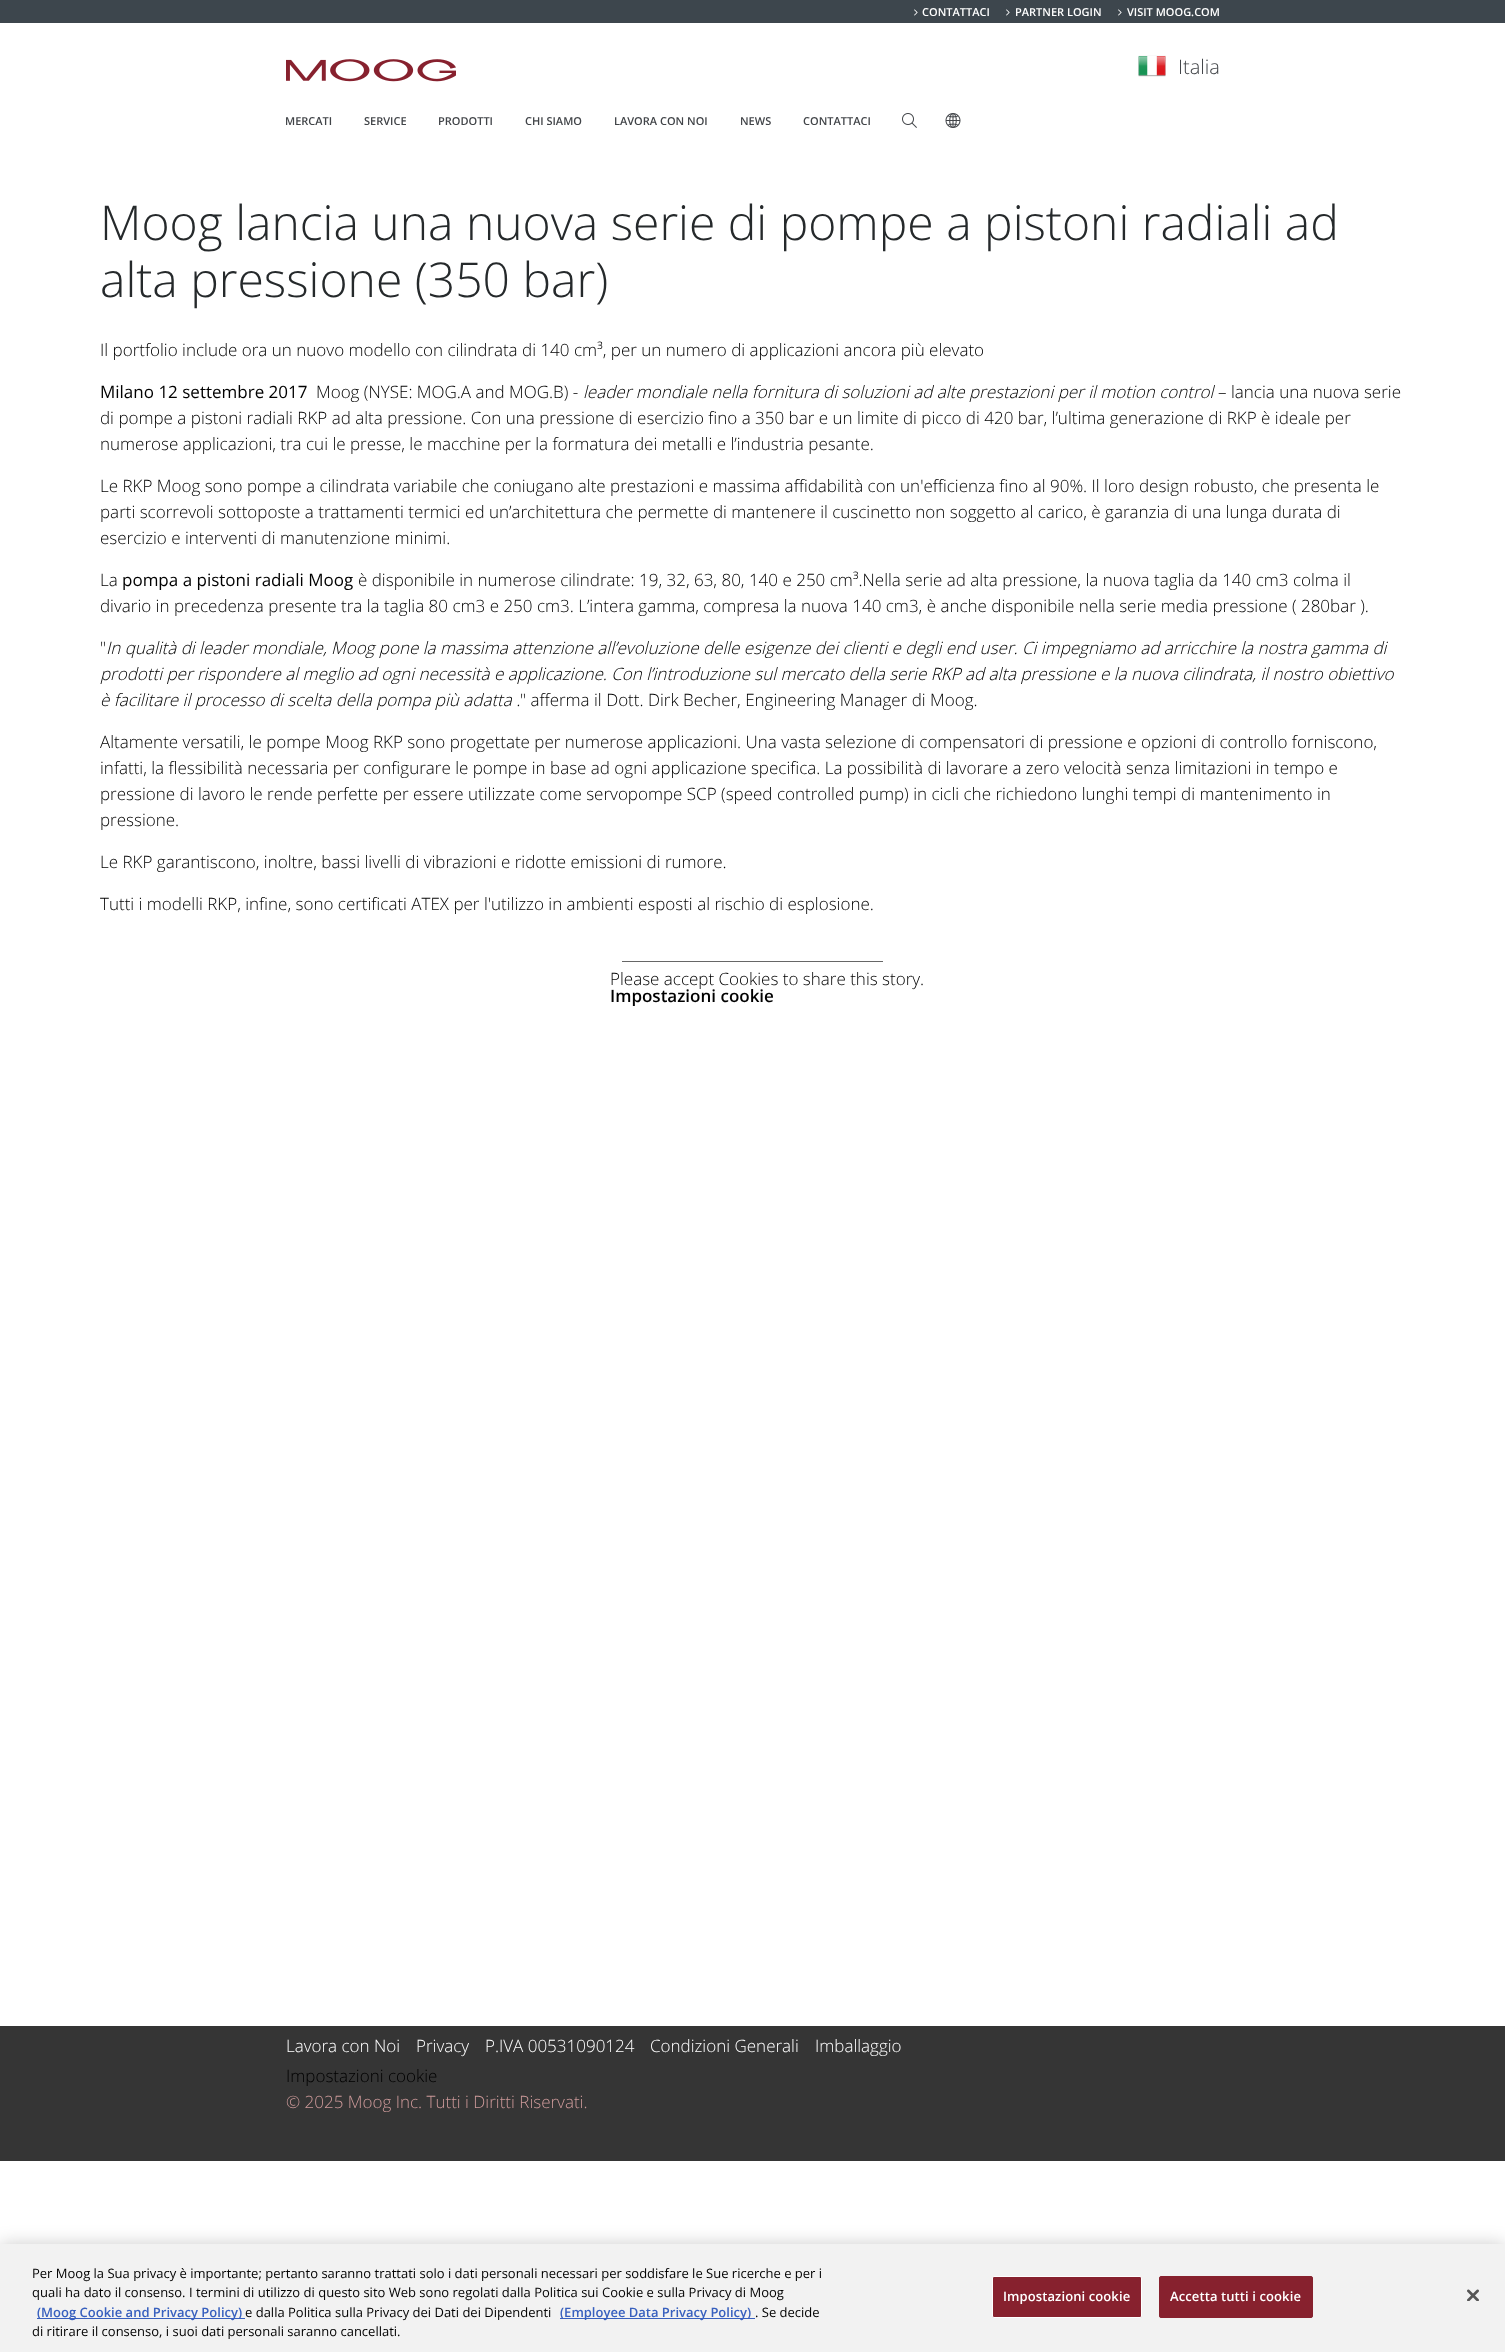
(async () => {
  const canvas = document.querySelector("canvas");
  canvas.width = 1505;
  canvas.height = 2352;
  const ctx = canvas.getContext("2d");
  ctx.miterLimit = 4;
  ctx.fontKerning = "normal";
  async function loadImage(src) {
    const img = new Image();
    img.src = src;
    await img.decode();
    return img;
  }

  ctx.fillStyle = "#ffffff";
  ctx.fillRect(0, 0, 1505, 2352);
  ctx.fillStyle = "#3d464d";
  ctx.fillRect(0, 0, 1505, 23);
  ctx.drawImage(await loadImage("img/1.png"), 914, 9, 4, 7);
  ctx.drawImage(await loadImage("img/1.png"), 1006, 9, 4, 7);
  ctx.drawImage(await loadImage("img/1.png"), 1118, 9, 4, 7);
  ctx.drawImage(await loadImage("img/2.png"), 286, 59, 170, 23);
  ctx.drawImage(await loadImage("img/3.png"), 1138, 55, 28, 22);
  ctx.drawImage(await loadImage("img/4.png"), 902, 113, 15, 15);
  ctx.drawImage(await loadImage("img/5.png"), 945, 113, 16, 15);
  ctx.fillStyle = "#666666";
  ctx.fillRect(622, 961, 261, 1);
  ctx.fillStyle = "#353535";
  ctx.fillRect(0, 2026, 1505, 135);
  ctx.fillStyle = "rgba(0, 0, 0, 0.2)";
  ctx.filter = "blur(9px)";
  ctx.beginPath();
  ctx.rect(0, 2244, 1505, 108);
  ctx.fill();
  ctx.filter = "none";
  for (const [x, y, w, h, color] of [
    [0, 2244, 1505, 108, "#f2f2f2"],
    [37, 2318, 208, 1, "#3860be"],
    [560, 2318, 195, 1, "#3860be"],
  ]) {
    ctx.fillStyle = color;
    ctx.fillRect(x, y, w, h);
  }
  ctx.fillStyle = "#87212e";
  ctx.beginPath();
  ctx.roundRect(992.5, 2276.5, 149, 41, 1.5);
  ctx.fill();
  ctx.strokeStyle = "#ffffff";
  ctx.stroke();
  ctx.beginPath();
  ctx.roundRect(1159.5, 2276.5, 153, 41, 1.5);
  ctx.fill();
  ctx.strokeStyle = "#87212e";
  ctx.stroke();
  ctx.drawImage(await loadImage("img/6.png"), 1467, 2289, 12, 12);
  ctx.font = "600 11px Open Sans";
  ctx.fillStyle = "#ffffff";
  for (const [text, x, y] of [
    ["CONTATTACI", 922, 16],
    ["PARTNER LOGIN", 1015, 16],
    ["VISIT MOOG.COM", 1127, 16],
  ]) {
    ctx.fillText(text, x, y);
  }
  ctx.font = "300 20px Open Sans";
  ctx.fillStyle = "#414448";
  ctx.fillText("Italia", 1178, 74);
  ctx.font = "600 11px Open Sans";
  for (const [text, x, y] of [
    ["MERCATI", 285, 125],
    ["SERVICE", 364, 125],
    ["PRODOTTI", 438, 125],
    ["CHI SIAMO", 525, 125],
    ["LAVORA CON NOI", 614, 125],
    ["NEWS", 740, 125],
    ["CONTATTACI", 803, 125],
  ]) {
    ctx.fillText(text, x, y);
  }
  ctx.font = "300 48px Open Sans";
  ctx.fillStyle = "#25292b";
  ctx.fillText("Moog lancia una nuova serie di pompe a pistoni radiali ad", 100, 240);
  ctx.fillText("alta pressione (350 bar)", 100, 297);
  ctx.font = "300 17px Open Sans";
  ctx.fillStyle = "#000000";
  ctx.fillText("Il portfolio include ora un nuovo modello con cilindrata di 140 cm³, per un numero di applicazioni ancora più elevato", 100, 356);
  ctx.font = "17px Open Sans";
  ctx.fillText("Milano 12 settembre 2017", 100, 398);
  ctx.font = "300 17px Open Sans";
  ctx.fillText("Moog (NYSE: MOG.A and MOG.B) -", 316, 398);
  ctx.font = "italic 300 17px Open Sans";
  ctx.fillText("leader mondiale nella fornitura di soluzioni ad alte prestazioni per il motion control", 583, 398);
  ctx.font = "300 17px Open Sans";
  for (const [text, x, y] of [
    ["– lancia una nuova serie", 1218, 398],
    ["di pompe a pistoni radiali RKP ad alta pressione. Con una pressione di esercizio fino a 350 bar e un limite di picco di 420 bar, l’ultima generazione di RKP è ideale per", 100, 424],
    ["numerose applicazioni, tra cui le presse, le macchine per la formatura dei metalli e l’industria pesante.", 100, 450],
    ["Le RKP Moog sono pompe a cilindrata variabile che coniugano alte prestazioni e massima affidabilità con un'efficienza fino al 90%. Il loro design robusto, che presenta le", 100, 492],
    ["parti scorrevoli sottoposte a trattamenti termici ed un’architettura che permette di mantenere il cuscinetto non soggetto al carico, è garanzia di una lunga durata di", 100, 518],
    ["esercizio e interventi di manutenzione minimi.", 100, 544],
    ["La", 100, 586],
  ]) {
    ctx.fillText(text, x, y);
  }
  ctx.font = "17px Open Sans";
  ctx.fillText("pompa a pistoni radiali Moog", 122, 586);
  ctx.font = "300 17px Open Sans";
  for (const [text, x, y] of [
    ["è disponibile in numerose cilindrate: 19, 32, 63, 80, 140 e 250 cm³.Nella serie ad alta pressione, la nuova taglia da 140 cm3 colma il", 358, 586],
    ["divario in precedenza presente tra la taglia 80 cm3 e 250 cm3. L’intera gamma, compresa la nuova 140 cm3, è anche disponibile nella serie media pressione ( 280bar ).", 100, 612],
    ["\"", 100, 654],
  ]) {
    ctx.fillText(text, x, y);
  }
  ctx.font = "italic 300 17px Open Sans";
  for (const [text, x, y] of [
    ["In qualità di leader mondiale, Moog pone la massima attenzione all’evoluzione delle esigenze dei clienti e degli end user. Ci impegniamo ad arricchire la nostra gamma di", 106, 654],
    ["prodotti per rispondere al meglio ad ogni necessità e applicazione. Con l’introduzione sul mercato della serie RKP ad alta pressione e la nuova cilindrata, il nostro obiettivo", 100, 680],
    ["è facilitare il processo di scelta della pompa più adatta .", 100, 706],
  ]) {
    ctx.fillText(text, x, y);
  }
  ctx.font = "300 17px Open Sans";
  for (const [text, x, y] of [
    ["\" afferma il Dott. Dirk Becher, Engineering Manager di Moog.", 520, 706],
    ["Altamente versatili, le pompe Moog RKP sono progettate per numerose applicazioni. Una vasta selezione di compensatori di pressione e opzioni di controllo forniscono,", 100, 748],
    ["infatti, la flessibilità necessaria per configurare le pompe in base ad ogni applicazione specifica. La possibilità di lavorare a zero velocità senza limitazioni in tempo e", 100, 774],
    ["pressione di lavoro le rende perfette per essere utilizzate come servopompe SCP (speed controlled pump) in cicli che richiedono lunghi tempi di mantenimento in", 100, 800],
    ["pressione.", 100, 826],
    ["Le RKP garantiscono, inoltre, bassi livelli di vibrazioni e ridotte emissioni di rumore.", 100, 868],
    ["Tutti i modelli RKP, infine, sono certificati ATEX per l'utilizzo in ambienti esposti al rischio di esplosione.", 100, 910],
    ["Please accept Cookies to share this story.", 610, 985],
  ]) {
    ctx.fillText(text, x, y);
  }
  ctx.font = "600 17px Open Sans";
  ctx.fillText("Impostazioni cookie", 610, 1002);
  ctx.font = "300 17px Open Sans";
  ctx.fillStyle = "#ffffff";
  for (const [text, x, y] of [
    ["Lavora con Noi", 286, 2052],
    ["Privacy", 416, 2052],
    ["P.IVA 00531090124", 485, 2052],
    ["Condizioni Generali", 650, 2052],
    ["Imballaggio", 815, 2052],
  ]) {
    ctx.fillText(text, x, y);
  }
  ctx.fillStyle = "#000000";
  ctx.fillText("Impostazioni cookie", 286, 2082);
  ctx.fillStyle = "#cc9999";
  ctx.fillText("© 2025 Moog Inc. Tutti i Diritti Riservati.", 286, 2108);
  ctx.font = "13px Open Sans";
  ctx.fillStyle = "#000000";
  ctx.fillText("Per Moog la Sua privacy è importante; pertanto saranno trattati solo i dati personali necessari per soddisfare le Sue ricerche e per i", 32, 2278);
  ctx.fillText("quali ha dato il consenso. I termini di utilizzo di questo sito Web sono regolati dalla Politica sui Cookie e sulla Privacy di Moog", 32, 2297);
  ctx.font = "600 13px Open Sans";
  ctx.fillStyle = "#3860be";
  ctx.fillText("(Moog Cookie and Privacy Policy)", 37, 2317);
  ctx.font = "13px Open Sans";
  ctx.fillStyle = "#000000";
  ctx.fillText("e dalla Politica sulla Privacy dei Dati dei Dipendenti", 245, 2317);
  ctx.font = "600 13px Open Sans";
  ctx.fillStyle = "#3860be";
  ctx.fillText("(Employee Data Privacy Policy)", 560, 2317);
  ctx.font = "13px Open Sans";
  ctx.fillStyle = "#000000";
  ctx.fillText(". Se decide", 755, 2317);
  ctx.fillText("di ritirare il consenso, i suoi dati personali saranno cancellati.", 32, 2336);
  ctx.letterSpacing = "0.1px";
  ctx.font = "600 13px Open Sans";
  ctx.fillStyle = "#ffffff";
  ctx.fillText("Impostazioni cookie", 1003, 2301);
  ctx.fillText("Accetta tutti i cookie", 1170, 2301);
})();
